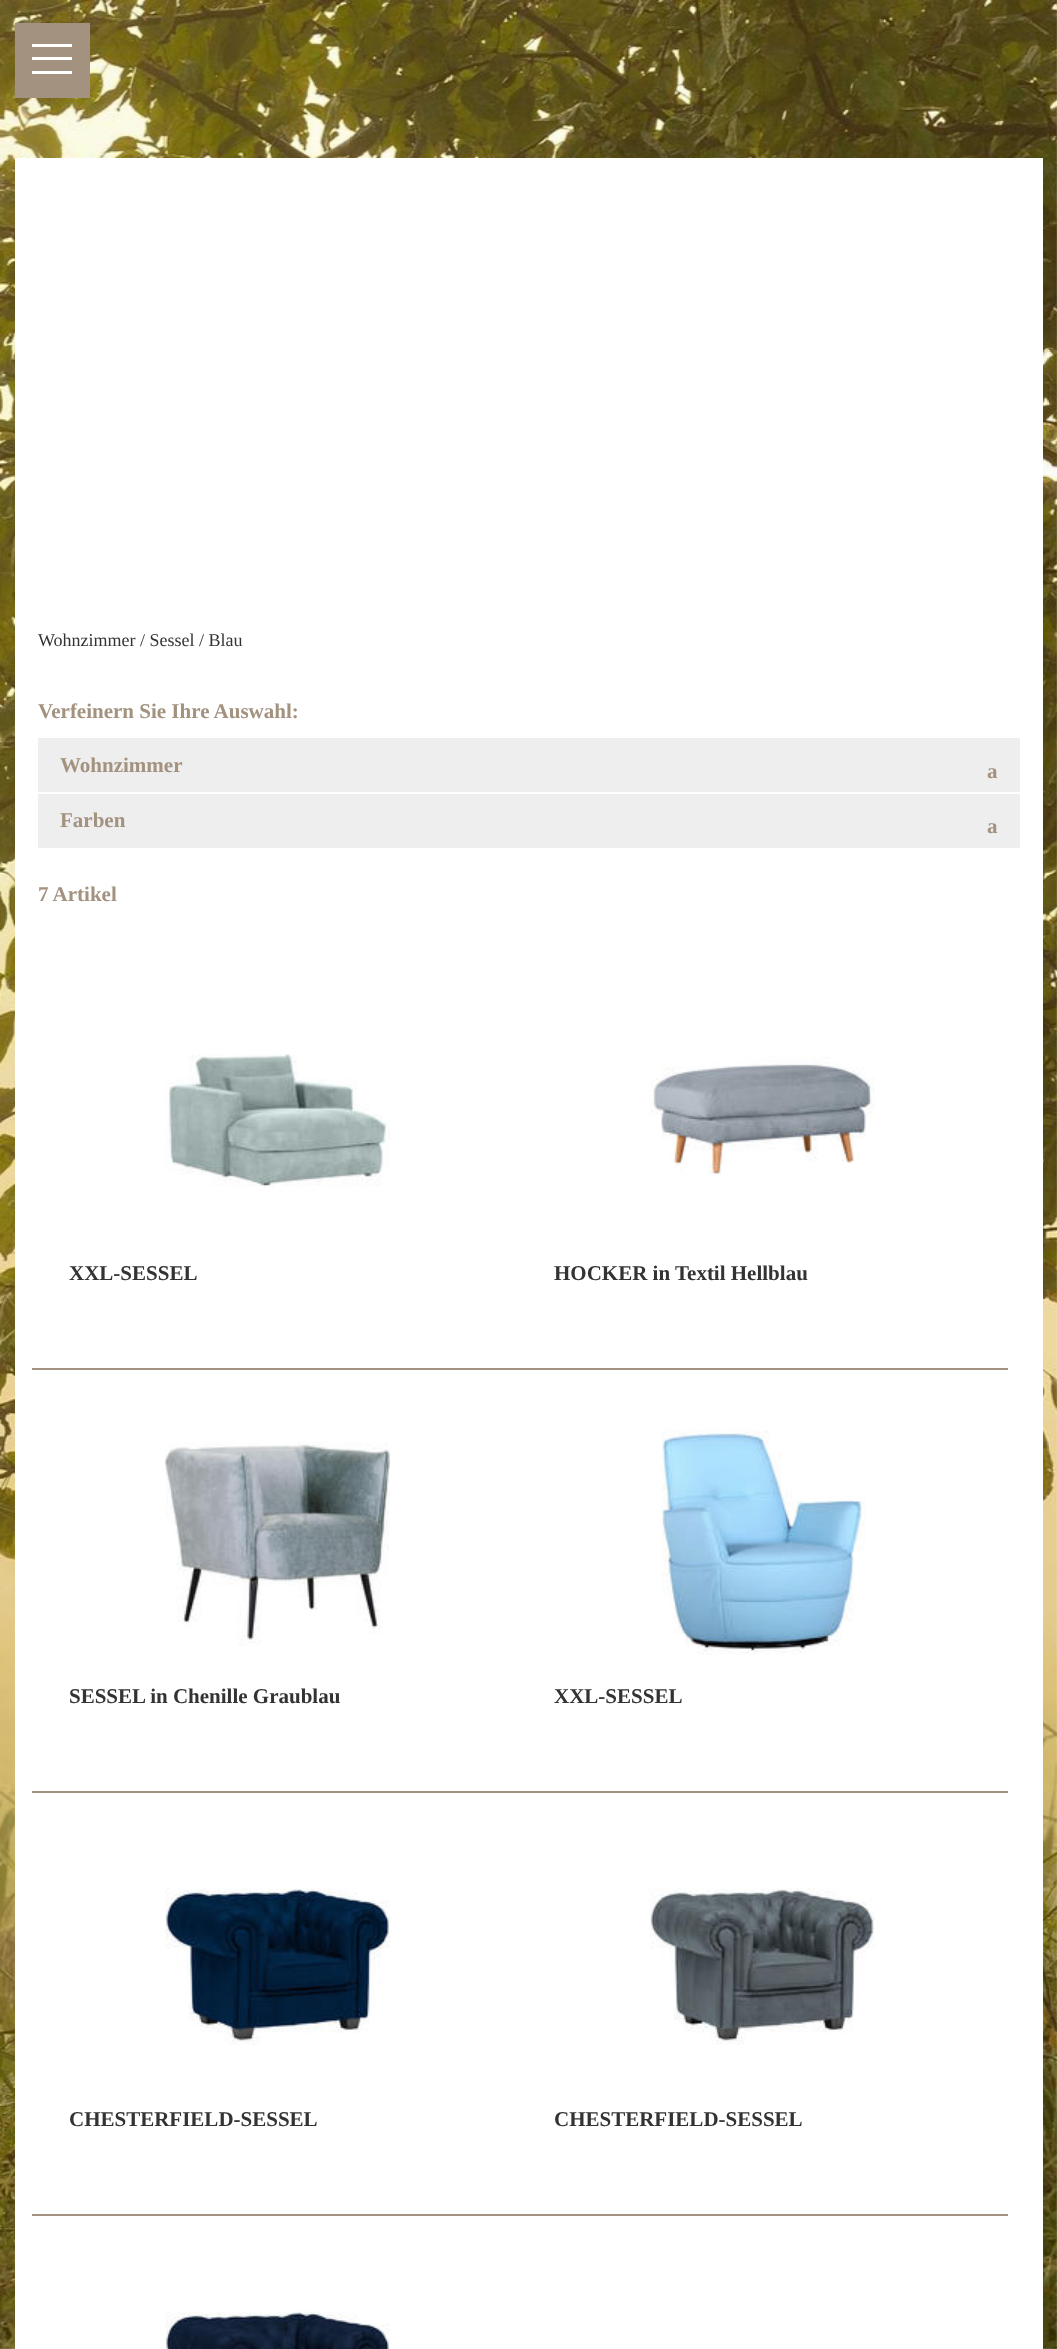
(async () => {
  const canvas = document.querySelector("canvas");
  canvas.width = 1057;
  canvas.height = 2349;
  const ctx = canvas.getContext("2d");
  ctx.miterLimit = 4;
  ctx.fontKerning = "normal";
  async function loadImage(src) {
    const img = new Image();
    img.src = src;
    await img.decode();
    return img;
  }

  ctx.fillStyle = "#ffffff";
  ctx.fillRect(0, 0, 1057, 2349);
  ctx.drawImage(await loadImage("img/1.png"), 0, 0, 1057, 2349);
  for (const [x, y, w, h, color] of [
    [15, 23, 75, 75, "#a2927f"],
    [32, 44, 40, 3, "#ffffff"],
    [32, 57, 40, 3, "#ffffff"],
    [32, 71, 40, 3, "#ffffff"],
    [15, 158, 1028, 2191, "#ffffff"],
    [38, 738, 982, 54, "#eeeeee"],
    [38, 794, 982, 54, "#eeeeee"],
    [32, 1368, 976, 2, "#a2927f"],
  ]) {
    ctx.fillStyle = color;
    ctx.fillRect(x, y, w, h);
  }
  ctx.drawImage(await loadImage("img/2.png"), 165, 1054, 225, 133);
  ctx.drawImage(await loadImage("img/3.png"), 649, 1055, 226, 120);
  ctx.fillRect(32, 1791, 976, 2);
  ctx.drawImage(await loadImage("img/4.png"), 165, 1442, 225, 204);
  ctx.drawImage(await loadImage("img/5.png"), 661, 1429, 205, 226);
  ctx.fillRect(32, 2214, 976, 2);
  ctx.drawImage(await loadImage("img/6.png"), 165, 1888, 225, 157);
  ctx.drawImage(await loadImage("img/7.png"), 649, 1888, 226, 157);
  ctx.drawImage(await loadImage("img/8.png"), 165, 2311, 225, 38);
  ctx.font = "18px Liberation Serif";
  ctx.fillStyle = "#333333";
  ctx.fillText("Wohnzimmer / Sessel / Blau", 38, 646);
  ctx.font = "bold 21px Liberation Serif";
  ctx.fillStyle = "#a2927f";
  for (const [text, x, y] of [
    ["Verfeinern Sie Ihre Auswahl:", 38, 718],
    ["Wohnzimmer", 60, 772],
    ["a", 987, 778],
    ["Farben", 60, 827],
    ["a", 987, 833],
    ["7 Artikel", 38, 901],
  ]) {
    ctx.fillText(text, x, y);
  }
  ctx.fillStyle = "#333333";
  for (const [text, x, y] of [
    ["XXL-SESSEL", 69, 1280],
    ["HOCKER in Textil Hellblau", 554, 1280],
    ["SESSEL in Chenille Graublau", 69, 1703],
    ["XXL-SESSEL", 554, 1703],
    ["CHESTERFIELD-SESSEL", 69, 2126],
    ["CHESTERFIELD-SESSEL", 554, 2126],
  ]) {
    ctx.fillText(text, x, y);
  }
})();
